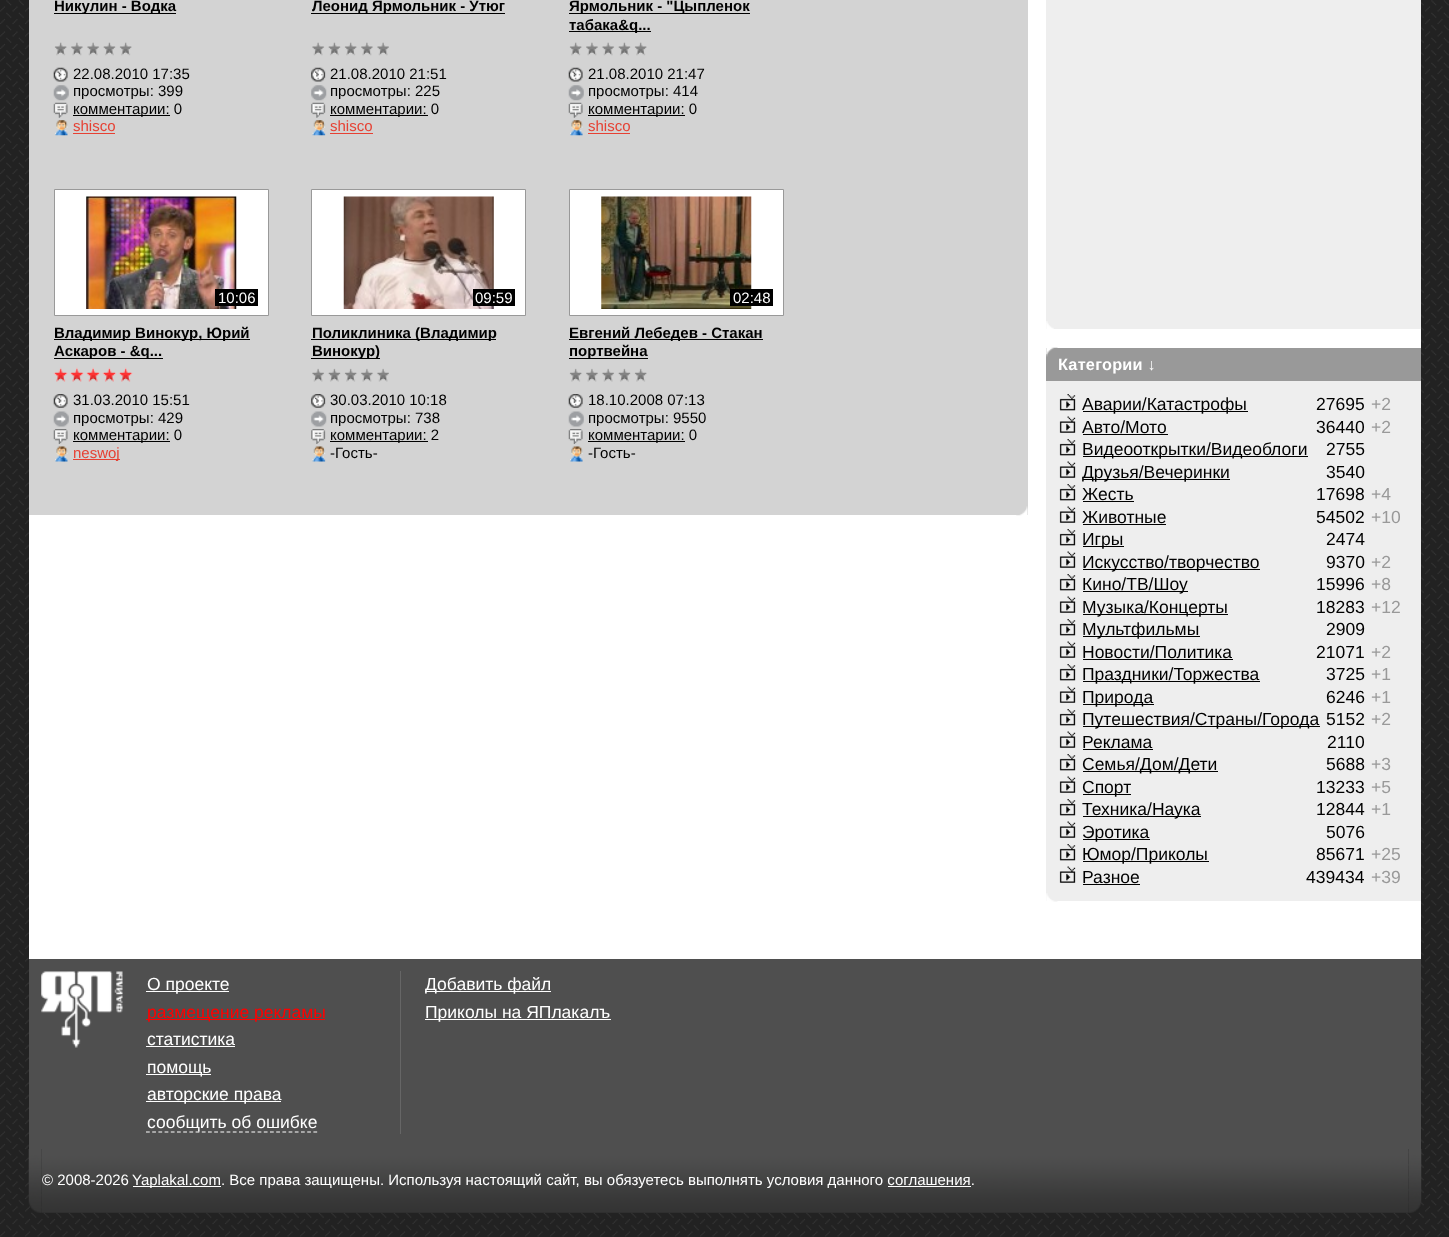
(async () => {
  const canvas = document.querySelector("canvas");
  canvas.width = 1449;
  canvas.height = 1237;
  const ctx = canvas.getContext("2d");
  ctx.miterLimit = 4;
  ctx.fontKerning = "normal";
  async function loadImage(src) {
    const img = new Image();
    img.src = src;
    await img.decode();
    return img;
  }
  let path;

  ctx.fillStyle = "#222222";
  ctx.fillRect(0, 0, 1449, 1237);
  ctx.drawImage(await loadImage("img/1.png"), 0, 0, 1449, 1237);
  ctx.fillStyle = "#ffffff";
  ctx.fillRect(29, 0, 1392, 959);
  ctx.fillStyle = "#d3d3d3";
  ctx.fillRect(29, 0, 999, 515);
  ctx.drawImage(await loadImage("img/2.png"), 1016, 506, 12, 10);
  ctx.fillStyle = "#000000";
  ctx.fillRect(54, 13, 122, 1);
  ctx.drawImage(await loadImage("img/3.png"), 54, 42, 78, 14);
  ctx.drawImage(await loadImage("img/4.png"), 53, 67, 15, 15);
  ctx.drawImage(await loadImage("img/5.png"), 53, 85, 16, 16);
  ctx.drawImage(await loadImage("img/6.png"), 53, 102, 15, 16);
  ctx.fillRect(73, 115, 97, 1);
  ctx.drawImage(await loadImage("img/7.png"), 55, 120, 13, 16);
  ctx.fillStyle = "#e64133";
  ctx.fillRect(73, 133, 42, 1);
  ctx.fillStyle = "#000000";
  ctx.fillRect(311, 13, 194, 1);
  ctx.drawImage(await loadImage("img/8.png"), 312, 42, 77, 14);
  ctx.drawImage(await loadImage("img/9.png"), 311, 67, 15, 15);
  ctx.drawImage(await loadImage("img/10.png"), 311, 85, 16, 16);
  ctx.drawImage(await loadImage("img/11.png"), 311, 102, 15, 16);
  ctx.fillRect(330, 115, 98, 1);
  ctx.drawImage(await loadImage("img/12.png"), 312, 120, 14, 16);
  for (const [x, y, w, h, color] of [
    [330, 133, 43, 1, "#e64133"],
    [569, 13, 181, 1, "#000000"],
    [569, 31, 82, 1, "#000000"],
  ]) {
    ctx.fillStyle = color;
    ctx.fillRect(x, y, w, h);
  }
  ctx.drawImage(await loadImage("img/13.png"), 569, 42, 78, 14);
  ctx.drawImage(await loadImage("img/14.png"), 568, 67, 15, 15);
  ctx.drawImage(await loadImage("img/15.png"), 568, 85, 16, 16);
  ctx.drawImage(await loadImage("img/16.png"), 568, 102, 15, 16);
  ctx.fillRect(588, 115, 97, 1);
  ctx.drawImage(await loadImage("img/17.png"), 570, 120, 13, 16);
  ctx.fillStyle = "#e64133";
  ctx.fillRect(588, 133, 42, 1);
  ctx.fillStyle = "#ffffff";
  ctx.beginPath();
  ctx.rect(54.5, 189.5, 214, 126);
  ctx.fill();
  ctx.strokeStyle = "#999999";
  ctx.stroke();
  ctx.drawImage(await loadImage("img/18.png"), 86, 196, 151, 113);
  for (const [x, y, w, h, color] of [
    [215, 289, 43, 17, "#000000"],
    [54, 339, 196, 1, "#000000"],
    [54, 358, 109, 1, "#000000"],
  ]) {
    ctx.fillStyle = color;
    ctx.fillRect(x, y, w, h);
  }
  ctx.drawImage(await loadImage("img/19.png"), 53, 367, 80, 15);
  ctx.drawImage(await loadImage("img/20.png"), 53, 394, 15, 14);
  ctx.drawImage(await loadImage("img/21.png"), 53, 411, 16, 16);
  ctx.drawImage(await loadImage("img/22.png"), 53, 429, 15, 15);
  ctx.fillRect(73, 441, 97, 1);
  ctx.drawImage(await loadImage("img/23.png"), 55, 446, 13, 16);
  ctx.fillStyle = "#e64133";
  ctx.fillRect(73, 459, 47, 1);
  ctx.fillStyle = "#ffffff";
  ctx.beginPath();
  ctx.rect(311.5, 189.5, 214, 126);
  ctx.fill();
  ctx.stroke();
  ctx.drawImage(await loadImage("img/24.png"), 343, 196, 151, 113);
  for (const [x, y, w, h, color] of [
    [473, 289, 42, 17, "#000000"],
    [311, 339, 185, 1, "#000000"],
    [311, 358, 69, 1, "#000000"],
  ]) {
    ctx.fillStyle = color;
    ctx.fillRect(x, y, w, h);
  }
  ctx.drawImage(await loadImage("img/25.png"), 312, 368, 77, 14);
  ctx.drawImage(await loadImage("img/26.png"), 311, 394, 15, 14);
  ctx.drawImage(await loadImage("img/27.png"), 311, 411, 16, 16);
  ctx.drawImage(await loadImage("img/28.png"), 311, 429, 15, 15);
  ctx.fillRect(330, 441, 98, 1);
  ctx.drawImage(await loadImage("img/29.png"), 312, 446, 14, 16);
  ctx.fillStyle = "#ffffff";
  ctx.beginPath();
  ctx.rect(569.5, 189.5, 214, 126);
  ctx.fill();
  ctx.stroke();
  ctx.drawImage(await loadImage("img/30.png"), 601, 196, 151, 113);
  for (const [x, y, w, h, color] of [
    [730, 289, 43, 17, "#000000"],
    [569, 339, 194, 1, "#000000"],
    [569, 358, 79, 1, "#000000"],
  ]) {
    ctx.fillStyle = color;
    ctx.fillRect(x, y, w, h);
  }
  ctx.drawImage(await loadImage("img/31.png"), 569, 368, 78, 14);
  ctx.drawImage(await loadImage("img/32.png"), 568, 394, 15, 14);
  ctx.drawImage(await loadImage("img/33.png"), 568, 411, 16, 16);
  ctx.drawImage(await loadImage("img/34.png"), 568, 429, 15, 15);
  ctx.fillRect(588, 441, 97, 1);
  ctx.drawImage(await loadImage("img/35.png"), 570, 446, 13, 16);
  ctx.fillStyle = "#eeeeee";
  ctx.fillRect(1046, 0, 375, 329);
  ctx.drawImage(await loadImage("img/36.png"), 1046, 321, 8, 8);
  ctx.fillStyle = "#999999";
  ctx.fillRect(1046, 348, 375, 33);
  ctx.drawImage(await loadImage("img/37.png"), 1046, 347, 12, 34);
  ctx.fillStyle = "#eeeeee";
  ctx.fillRect(1046, 381, 375, 520);
  ctx.drawImage(await loadImage("img/38.png"), 1046, 893, 12, 9);
  ctx.drawImage(await loadImage("img/39.png"), 1059, 394, 17, 17);
  ctx.fillStyle = "#000000";
  ctx.fillRect(1083, 411, 165, 1);
  ctx.drawImage(await loadImage("img/40.png"), 1059, 416, 17, 17);
  ctx.fillRect(1083, 434, 85, 1);
  ctx.drawImage(await loadImage("img/39.png"), 1059, 439, 17, 17);
  ctx.fillRect(1083, 456, 225, 1);
  ctx.drawImage(await loadImage("img/40.png"), 1059, 461, 17, 17);
  ctx.fillRect(1083, 479, 147, 1);
  ctx.drawImage(await loadImage("img/39.png"), 1059, 484, 17, 17);
  ctx.fillRect(1083, 501, 51, 1);
  ctx.drawImage(await loadImage("img/40.png"), 1059, 506, 17, 17);
  ctx.fillRect(1083, 524, 83, 1);
  ctx.drawImage(await loadImage("img/39.png"), 1059, 529, 17, 17);
  ctx.fillRect(1083, 546, 41, 1);
  ctx.drawImage(await loadImage("img/40.png"), 1059, 551, 17, 17);
  ctx.fillRect(1083, 569, 177, 1);
  ctx.drawImage(await loadImage("img/39.png"), 1059, 574, 17, 17);
  ctx.fillRect(1083, 591, 105, 1);
  ctx.drawImage(await loadImage("img/40.png"), 1059, 596, 17, 17);
  ctx.fillRect(1083, 614, 145, 1);
  ctx.drawImage(await loadImage("img/39.png"), 1059, 619, 17, 17);
  ctx.fillRect(1083, 636, 117, 1);
  ctx.drawImage(await loadImage("img/40.png"), 1059, 641, 17, 17);
  ctx.fillRect(1083, 659, 150, 1);
  ctx.drawImage(await loadImage("img/39.png"), 1059, 664, 17, 17);
  ctx.fillRect(1083, 681, 177, 1);
  ctx.drawImage(await loadImage("img/41.png"), 1059, 686, 17, 17);
  ctx.fillRect(1083, 704, 71, 1);
  ctx.drawImage(await loadImage("img/39.png"), 1059, 709, 17, 17);
  ctx.fillRect(1083, 726, 237, 1);
  ctx.drawImage(await loadImage("img/40.png"), 1059, 731, 17, 17);
  ctx.fillRect(1083, 749, 70, 1);
  ctx.drawImage(await loadImage("img/39.png"), 1059, 754, 17, 17);
  ctx.fillRect(1083, 771, 135, 1);
  ctx.drawImage(await loadImage("img/40.png"), 1059, 776, 17, 17);
  ctx.fillRect(1083, 794, 48, 1);
  ctx.drawImage(await loadImage("img/39.png"), 1059, 799, 17, 17);
  ctx.fillRect(1083, 816, 118, 1);
  ctx.drawImage(await loadImage("img/40.png"), 1059, 821, 17, 17);
  ctx.fillRect(1083, 839, 67, 1);
  ctx.drawImage(await loadImage("img/39.png"), 1059, 844, 17, 17);
  ctx.fillRect(1083, 861, 126, 1);
  ctx.drawImage(await loadImage("img/40.png"), 1059, 866, 17, 17);
  ctx.fillRect(1083, 884, 57, 1);
  ctx.fillStyle = "#4f4f4f";
  ctx.fillRect(29, 959, 1392, 190);
  ctx.drawImage(await loadImage("img/42.png"), 41, 971, 82, 77);
  for (const [x, y, w, h, color] of [
    [146, 991, 83, 1, "#ffffff"],
    [146, 1019, 179, 1, "#ff0000"],
    [146, 1046, 89, 1, "#ffffff"],
    [146, 1074, 65, 1, "#ffffff"],
    [146, 1101, 135, 1, "#ffffff"],
  ]) {
    ctx.fillStyle = color;
    ctx.fillRect(x, y, w, h);
  }
  path = new Path2D("M146 1132H317.5");
  ctx.strokeStyle = "#ffffff";
  ctx.lineWidth = 1.2;
  ctx.setLineDash([3.75, 2.45]);
  ctx.stroke(path);
  for (const [x, y, w, h, color] of [
    [400, 971, 1, 163, "#666666"],
    [425, 991, 126, 1, "#ffffff"],
    [425, 1019, 186, 1, "#ffffff"],
  ]) {
    ctx.fillStyle = color;
    ctx.fillRect(x, y, w, h);
  }
  ctx.drawImage(await loadImage("img/44.png"), 41, 1149, 1368, 64);
  ctx.fillRect(133, 1186, 88, 1);
  ctx.fillRect(888, 1186, 83, 1);
  ctx.drawImage(await loadImage("img/45.png"), 1409, 1149, 13, 64);
  ctx.font = "bold 15px Liberation Sans";
  ctx.fillStyle = "#000000";
  ctx.fillText("Никулин - Водка", 54, 11);
  ctx.font = "15px Liberation Sans";
  for (const [text, x, y] of [
    ["22.08.2010 17:35", 73, 79],
    ["просмотры: 399", 73, 96],
    ["комментарии: 0", 73, 114],
  ]) {
    ctx.fillText(text, x, y);
  }
  ctx.fillStyle = "#e64133";
  ctx.fillText("shisco", 73, 131);
  ctx.font = "bold 15px Liberation Sans";
  ctx.fillStyle = "#000000";
  ctx.fillText("Леонид Ярмольник - Утюг", 312, 11);
  ctx.font = "15px Liberation Sans";
  for (const [text, x, y] of [
    ["21.08.2010 21:51", 330, 79],
    ["просмотры: 225", 330, 96],
    ["комментарии: 0", 330, 114],
  ]) {
    ctx.fillText(text, x, y);
  }
  ctx.fillStyle = "#e64133";
  ctx.fillText("shisco", 330, 131);
  ctx.font = "bold 15px Liberation Sans";
  ctx.fillStyle = "#000000";
  ctx.fillText("Ярмольник - \"Цыпленок", 569, 11);
  ctx.fillText("табака&q...", 569, 30);
  ctx.font = "15px Liberation Sans";
  for (const [text, x, y] of [
    ["21.08.2010 21:47", 588, 79],
    ["просмотры: 414", 588, 96],
    ["комментарии: 0", 588, 114],
  ]) {
    ctx.fillText(text, x, y);
  }
  ctx.fillStyle = "#e64133";
  ctx.fillText("shisco", 588, 131);
  ctx.fillStyle = "#ffffff";
  ctx.fillText("10:06", 218, 303);
  ctx.font = "bold 15px Liberation Sans";
  ctx.fillStyle = "#000000";
  ctx.fillText("Владимир Винокур, Юрий", 54, 338);
  ctx.fillText("Аскаров - &q...", 54, 356);
  ctx.font = "15px Liberation Sans";
  for (const [text, x, y] of [
    ["31.03.2010 15:51", 73, 405],
    ["просмотры: 429", 73, 423],
    ["комментарии: 0", 73, 440],
  ]) {
    ctx.fillText(text, x, y);
  }
  ctx.fillStyle = "#e64133";
  ctx.fillText("neswoj", 73, 458);
  ctx.fillStyle = "#ffffff";
  ctx.fillText("09:59", 475, 303);
  ctx.font = "bold 15px Liberation Sans";
  ctx.fillStyle = "#000000";
  ctx.fillText("Поликлиника (Владимир", 312, 338);
  ctx.fillText("Винокур)", 312, 356);
  ctx.font = "15px Liberation Sans";
  for (const [text, x, y] of [
    ["30.03.2010 10:18", 330, 405],
    ["просмотры: 738", 330, 423],
    ["комментарии: 2", 330, 440],
    ["-Гость-", 330, 458],
  ]) {
    ctx.fillText(text, x, y);
  }
  ctx.fillStyle = "#ffffff";
  ctx.fillText("02:48", 733, 303);
  ctx.font = "bold 15px Liberation Sans";
  ctx.fillStyle = "#000000";
  ctx.fillText("Евгений Лебедев - Стакан", 569, 338);
  ctx.fillText("портвейна", 569, 356);
  ctx.font = "15px Liberation Sans";
  for (const [text, x, y] of [
    ["18.10.2008 07:13", 588, 405],
    ["просмотры: 9550", 588, 423],
    ["комментарии: 0", 588, 440],
    ["-Гость-", 588, 458],
  ]) {
    ctx.fillText(text, x, y);
  }
  ctx.letterSpacing = "0.25px";
  ctx.font = "bold 16.25px Liberation Sans";
  ctx.fillStyle = "#ffffff";
  ctx.fillText("Категории ↓", 1058, 370);
  ctx.letterSpacing = "0px";
  ctx.font = "17.5px Liberation Sans";
  ctx.fillStyle = "#000000";
  ctx.fillText("Аварии/Катастрофы", 1082, 410);
  ctx.fillText("27695", 1316, 410);
  ctx.fillStyle = "#999999";
  ctx.fillText("+2", 1371, 410);
  ctx.fillStyle = "#000000";
  ctx.fillText("Авто/Мото", 1082, 433);
  ctx.fillText("36440", 1316, 433);
  ctx.fillStyle = "#999999";
  ctx.fillText("+2", 1371, 433);
  ctx.fillStyle = "#000000";
  for (const [text, x, y] of [
    ["Видеооткрытки/Видеоблоги", 1082, 455],
    ["2755", 1326, 455],
    ["Друзья/Вечеринки", 1082, 478],
    ["3540", 1326, 478],
    ["Жесть", 1082, 500],
    ["17698", 1316, 500],
  ]) {
    ctx.fillText(text, x, y);
  }
  ctx.fillStyle = "#999999";
  ctx.fillText("+4", 1371, 500);
  ctx.fillStyle = "#000000";
  ctx.fillText("Животные", 1082, 523);
  ctx.fillText("54502", 1316, 523);
  ctx.fillStyle = "#999999";
  ctx.fillText("+10", 1371, 523);
  ctx.fillStyle = "#000000";
  for (const [text, x, y] of [
    ["Игры", 1082, 545],
    ["2474", 1326, 545],
    ["Искусство/творчество", 1082, 568],
    ["9370", 1326, 568],
  ]) {
    ctx.fillText(text, x, y);
  }
  ctx.fillStyle = "#999999";
  ctx.fillText("+2", 1371, 568);
  ctx.fillStyle = "#000000";
  ctx.fillText("Кино/ТВ/Шоу", 1082, 590);
  ctx.fillText("15996", 1316, 590);
  ctx.fillStyle = "#999999";
  ctx.fillText("+8", 1371, 590);
  ctx.fillStyle = "#000000";
  ctx.fillText("Музыка/Концерты", 1082, 613);
  ctx.fillText("18283", 1316, 613);
  ctx.fillStyle = "#999999";
  ctx.fillText("+12", 1371, 613);
  ctx.fillStyle = "#000000";
  for (const [text, x, y] of [
    ["Мультфильмы", 1082, 635],
    ["2909", 1326, 635],
    ["Новости/Политика", 1082, 658],
    ["21071", 1316, 658],
  ]) {
    ctx.fillText(text, x, y);
  }
  ctx.fillStyle = "#999999";
  ctx.fillText("+2", 1371, 658);
  ctx.fillStyle = "#000000";
  ctx.fillText("Праздники/Торжества", 1082, 680);
  ctx.fillText("3725", 1326, 680);
  ctx.fillStyle = "#999999";
  ctx.fillText("+1", 1371, 680);
  ctx.fillStyle = "#000000";
  ctx.fillText("Природа", 1082, 703);
  ctx.fillText("6246", 1326, 703);
  ctx.fillStyle = "#999999";
  ctx.fillText("+1", 1371, 703);
  ctx.fillStyle = "#000000";
  ctx.fillText("Путешествия/Cтраны/Города", 1082, 725);
  ctx.fillText("5152", 1326, 725);
  ctx.fillStyle = "#999999";
  ctx.fillText("+2", 1371, 725);
  ctx.fillStyle = "#000000";
  for (const [text, x, y] of [
    ["Реклама", 1082, 748],
    ["2110", 1327, 748],
    ["Семья/Дом/Дети", 1082, 770],
    ["5688", 1326, 770],
  ]) {
    ctx.fillText(text, x, y);
  }
  ctx.fillStyle = "#999999";
  ctx.fillText("+3", 1371, 770);
  ctx.fillStyle = "#000000";
  ctx.fillText("Спорт", 1082, 793);
  ctx.fillText("13233", 1316, 793);
  ctx.fillStyle = "#999999";
  ctx.fillText("+5", 1371, 793);
  ctx.fillStyle = "#000000";
  ctx.fillText("Техника/Наука", 1082, 815);
  ctx.fillText("12844", 1316, 815);
  ctx.fillStyle = "#999999";
  ctx.fillText("+1", 1371, 815);
  ctx.fillStyle = "#000000";
  for (const [text, x, y] of [
    ["Эротика", 1082, 838],
    ["5076", 1326, 838],
    ["Юмор/Приколы", 1082, 860],
    ["85671", 1316, 860],
  ]) {
    ctx.fillText(text, x, y);
  }
  ctx.fillStyle = "#999999";
  ctx.fillText("+25", 1371, 860);
  ctx.fillStyle = "#000000";
  ctx.fillText("Разное", 1082, 883);
  ctx.fillText("439434", 1306, 883);
  ctx.fillStyle = "#999999";
  ctx.fillText("+39", 1371, 883);
  ctx.fillStyle = "#ffffff";
  ctx.fillText("О проекте", 147, 990);
  ctx.fillStyle = "#ff0000";
  ctx.fillText("размещение рекламы", 147, 1018);
  ctx.fillStyle = "#ffffff";
  for (const [text, x, y] of [
    ["статистика", 147, 1045],
    ["помощь", 147, 1073],
    ["авторские права", 147, 1100],
    ["сообщить об ошибке", 147, 1128],
    ["Добавить файл", 425, 990],
    ["Приколы на ЯПлакалъ", 425, 1018],
  ]) {
    ctx.fillText(text, x, y);
  }
  ctx.font = "15px Liberation Sans";
  ctx.fillText("© 2008-2026", 42, 1185);
  ctx.drawImage(await loadImage("img/43.png"), 28, 1149, 14, 64);
  ctx.fillText("Yaplakal.com. Все права защищены. Используя настоящий сайт, вы обязуетесь выполнять условия данного соглашения.", 132, 1185);
})();
